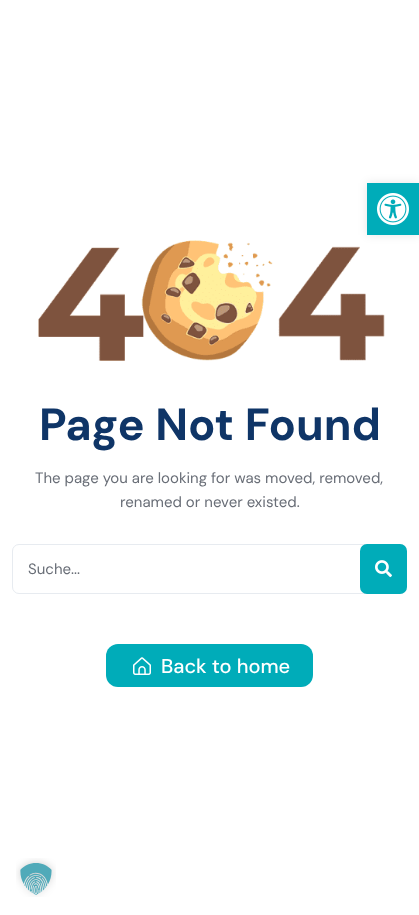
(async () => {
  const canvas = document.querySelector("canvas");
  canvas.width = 419;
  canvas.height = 915;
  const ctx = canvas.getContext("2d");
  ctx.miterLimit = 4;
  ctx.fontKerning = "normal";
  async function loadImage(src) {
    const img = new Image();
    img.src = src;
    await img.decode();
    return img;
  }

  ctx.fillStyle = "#ffffff";
  ctx.fillRect(0, 0, 419, 915);
  ctx.drawImage(await loadImage("img/2.png"), 38, 240, 347, 121);
  ctx.fillStyle = "rgba(0, 0, 0, 0.1)";
  ctx.filter = "blur(5px)";
  ctx.beginPath();
  ctx.rect(367, 183, 52, 52);
  ctx.fill();
  ctx.filter = "none";
  ctx.fillStyle = "#00acb9";
  ctx.fillRect(367, 183, 52, 52);
  ctx.drawImage(await loadImage("img/1.png"), 377, 193, 32, 32);
  ctx.beginPath();
  ctx.roundRect(12.5, 544.5, 394, 49, 6.5);
  ctx.strokeStyle = "#e7ebf0";
  ctx.stroke();
  ctx.beginPath();
  ctx.roundRect(360, 544, 47, 50, 7);
  ctx.fill();
  ctx.drawImage(await loadImage("img/3.png"), 375, 560, 17, 18);
  ctx.beginPath();
  ctx.roundRect(106, 644, 207, 43, 12);
  ctx.fill();
  ctx.drawImage(await loadImage("img/4.png"), 133, 657, 18, 18);
  ctx.drawImage(await loadImage("img/5.png"), 16, 858, 40, 39);
  ctx.font = "bold 45px DM Sans";
  ctx.fillStyle = "#0f3567";
  ctx.fillText("Page Not Found", 39, 440);
  ctx.font = "15px DM Sans";
  ctx.fillStyle = "#696e77";
  for (const [text, x, y] of [
    ["The page you are looking for was moved, removed,", 35, 483],
    ["renamed or never existed.", 120, 507],
    ["Suche...", 28, 574],
  ]) {
    ctx.fillText(text, x, y);
  }
  ctx.font = "500 20px DM Sans";
  ctx.fillStyle = "#ffffff";
  ctx.fillText("Back to home", 161, 673);
})();
